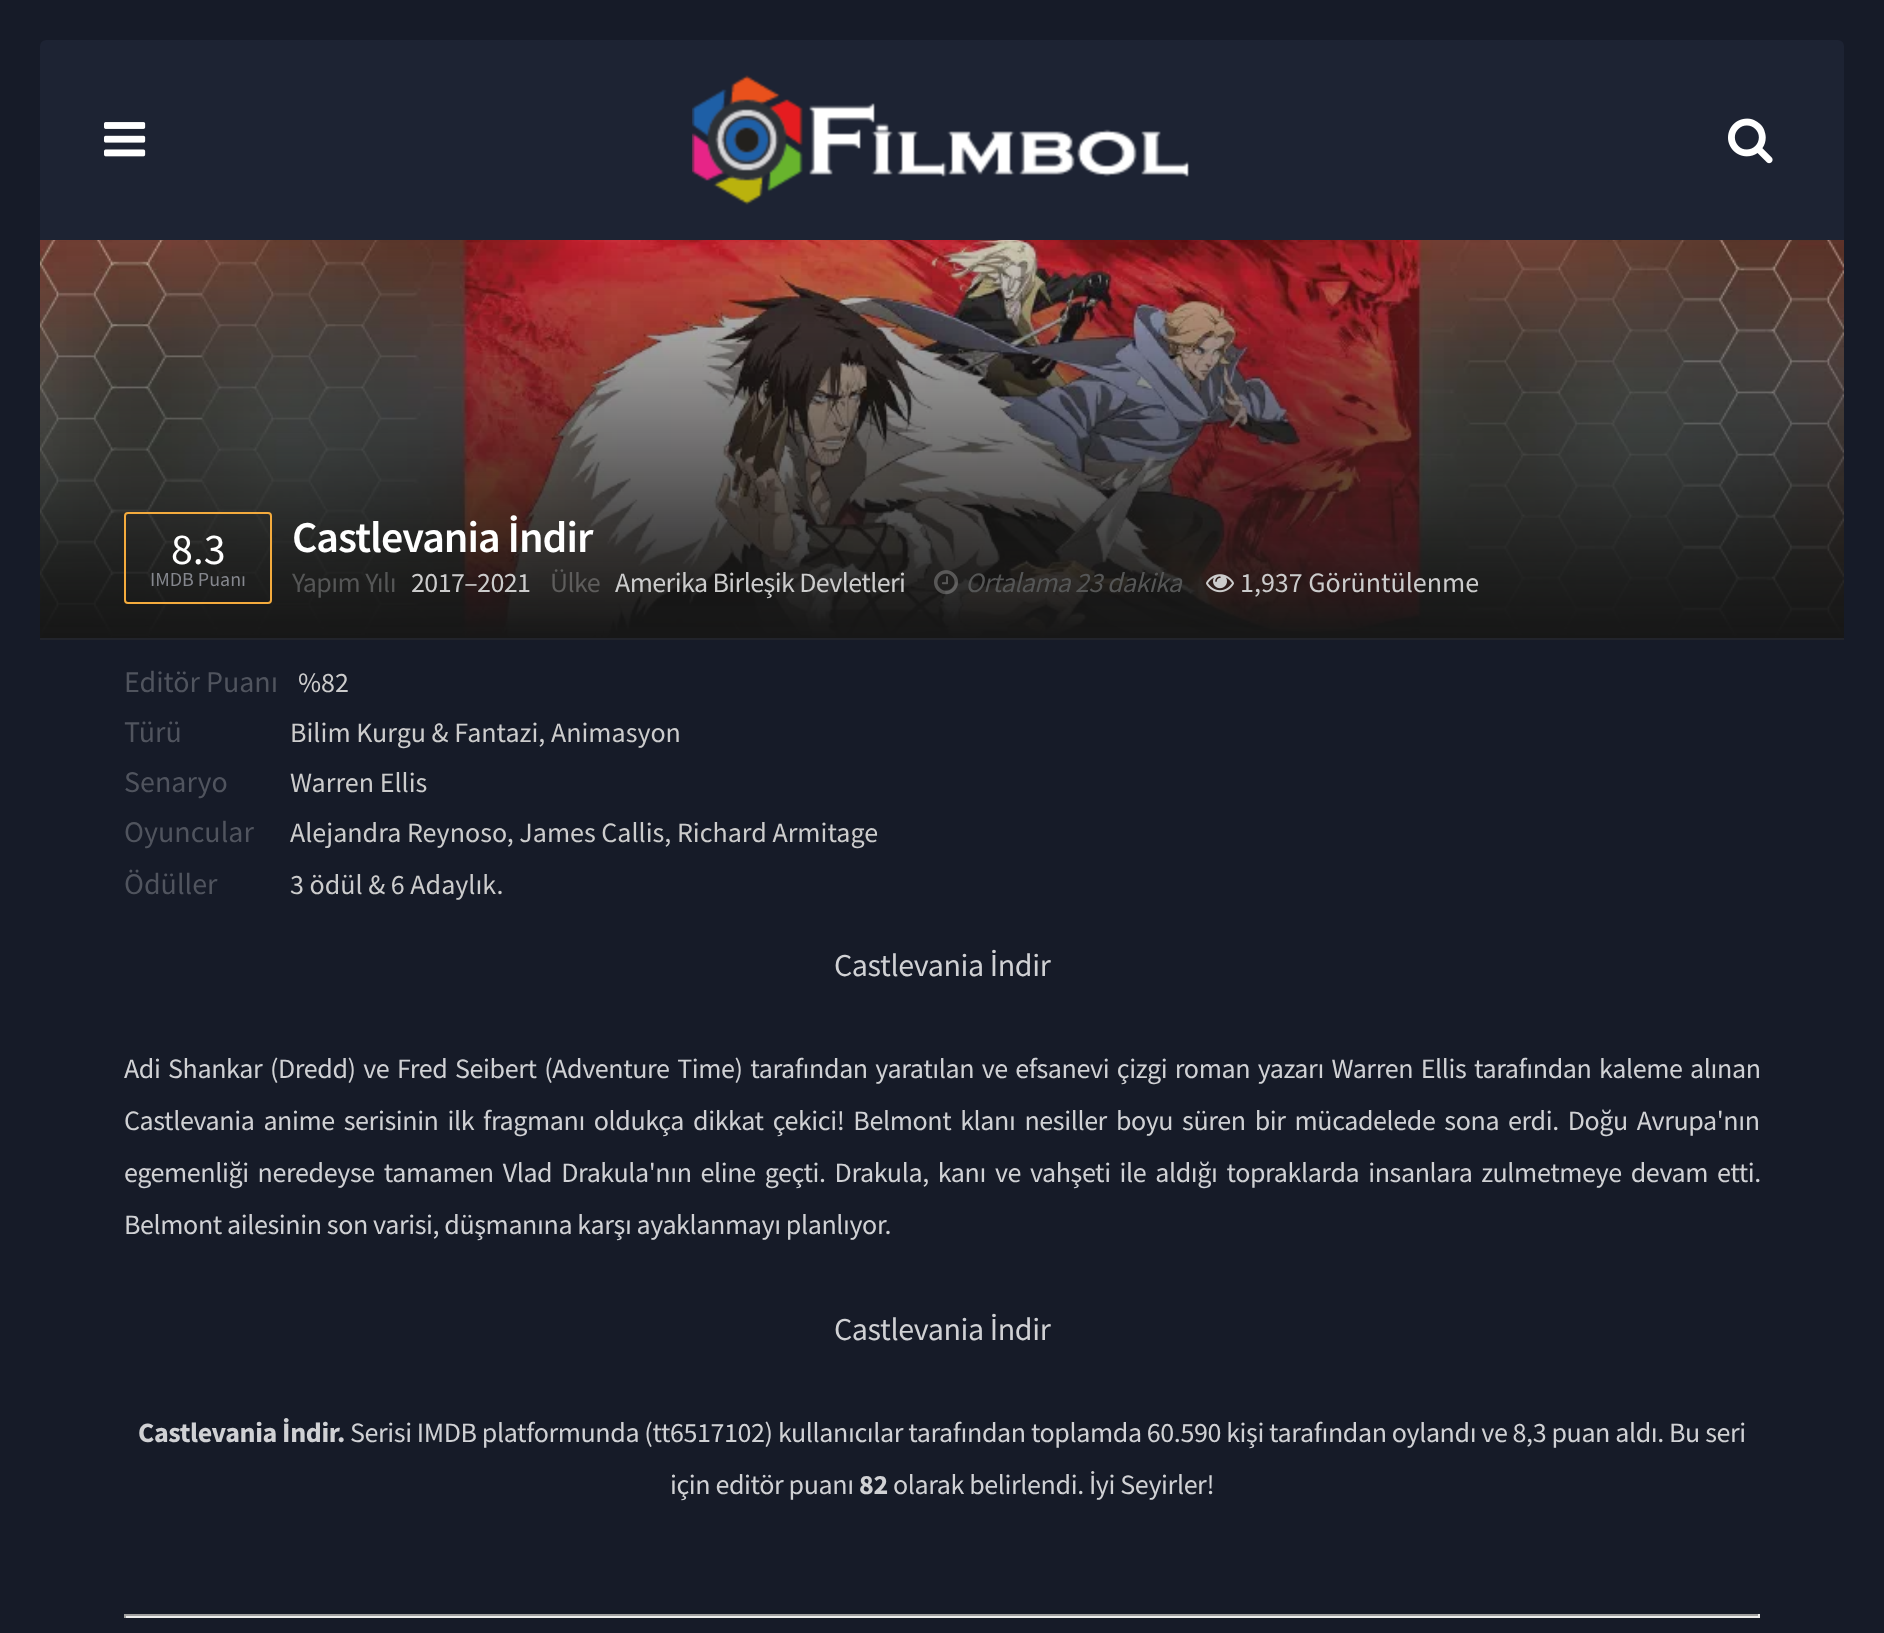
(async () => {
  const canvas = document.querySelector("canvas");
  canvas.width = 1884;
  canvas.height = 1633;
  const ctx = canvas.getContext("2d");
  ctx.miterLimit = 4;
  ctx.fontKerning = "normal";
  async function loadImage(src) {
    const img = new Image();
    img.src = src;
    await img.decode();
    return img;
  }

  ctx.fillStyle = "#161b28";
  ctx.fillRect(0, 0, 1884, 1633);
  ctx.fillStyle = "#1d2333";
  ctx.beginPath();
  ctx.roundRect(40, 40, 1804, 200, [6, 6, 0, 0]);
  ctx.fill();
  ctx.drawImage(await loadImage("img/1.png"), 104, 122, 42, 35);
  ctx.drawImage(await loadImage("img/2.png"), 692, 75, 497, 130);
  ctx.drawImage(await loadImage("img/3.png"), 1728, 118, 45, 46);
  ctx.drawImage(await loadImage("img/4.png"), 40, 240, 1804, 398);
  ctx.fillStyle = "#22242b";
  ctx.fillRect(40, 638, 1804, 2);
  ctx.beginPath();
  ctx.roundRect(125, 513, 146, 90, 3);
  ctx.strokeStyle = "#f4ab3d";
  ctx.lineWidth = 2;
  ctx.stroke();
  ctx.drawImage(await loadImage("img/5.png"), 934, 570, 24, 25);
  ctx.drawImage(await loadImage("img/6.png"), 1206, 574, 28, 19);
  for (const [x, y, w, h, color] of [
    [124, 1614, 1636, 2, "#9f9f9f"],
    [1758, 1614, 2, 4, "#eeeeee"],
    [124, 1616, 1636, 2, "#eeeeee"],
    [124, 1614, 2, 4, "#9f9f9f"],
  ]) {
    ctx.fillStyle = color;
    ctx.fillRect(x, y, w, h);
  }
  ctx.font = "44px Source Sans Pro";
  ctx.fillStyle = "#ffffff";
  ctx.fillText("8.3", 171, 564);
  ctx.font = "20px Source Sans Pro";
  ctx.fillStyle = "#85878e";
  ctx.fillText("IMDB Puanı", 150, 586);
  ctx.letterSpacing = "-1px";
  ctx.font = "600 44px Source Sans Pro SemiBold";
  ctx.fillStyle = "#ffffff";
  ctx.fillText("Castlevania İndir", 292, 552);
  ctx.letterSpacing = "-0.6px";
  ctx.font = "28px Source Sans Pro";
  ctx.fillStyle = "#555656";
  ctx.fillText("Yapım Yılı", 292, 592);
  ctx.fillStyle = "#cccccc";
  ctx.fillText("2017–2021", 411, 592);
  ctx.fillStyle = "#5e5d5c";
  ctx.fillText("Ülke", 550, 592);
  ctx.fillStyle = "#cccccc";
  ctx.fillText("Amerika Birleşik Devletleri", 615, 592);
  ctx.font = "italic 28px Source Sans Pro";
  ctx.fillStyle = "#555656";
  ctx.fillText("Ortalama 23 dakika", 965, 592);
  ctx.letterSpacing = "0px";
  ctx.font = "28px Source Sans Pro";
  ctx.fillStyle = "#cccccc";
  ctx.fillText("1,937 Görüntülenme", 1240, 592);
  ctx.font = "30px Source Sans Pro";
  ctx.fillStyle = "#50545e";
  ctx.fillText("Editör Puanı", 124, 692);
  ctx.font = "28px Source Sans Pro";
  ctx.fillStyle = "#cccccc";
  ctx.fillText("%82", 298, 692);
  ctx.font = "30px Source Sans Pro";
  ctx.fillStyle = "#50545e";
  ctx.fillText("Türü", 124, 742);
  ctx.font = "28px Source Sans Pro";
  ctx.fillStyle = "#cccccc";
  ctx.fillText("Bilim Kurgu & Fantazi, Animasyon", 290, 742);
  ctx.font = "30px Source Sans Pro";
  ctx.fillStyle = "#50545e";
  ctx.fillText("Senaryo", 124, 792);
  ctx.font = "28px Source Sans Pro";
  ctx.fillStyle = "#cccccc";
  ctx.fillText("Warren Ellis", 290, 792);
  ctx.font = "30px Source Sans Pro";
  ctx.fillStyle = "#50545e";
  ctx.fillText("Oyuncular", 124, 842);
  ctx.font = "28px Source Sans Pro";
  ctx.fillStyle = "#cccccc";
  ctx.fillText("Alejandra Reynoso, James Callis, Richard Armitage", 290, 842);
  ctx.font = "30px Source Sans Pro";
  ctx.fillStyle = "#50545e";
  ctx.fillText("Ödüller", 124, 894);
  ctx.font = "28px Source Sans Pro";
  ctx.fillStyle = "#cccccc";
  ctx.fillText("3 ödül & 6 Adaylık.", 290, 894);
  ctx.letterSpacing = "-0.4px";
  ctx.font = "32px Source Sans Pro";
  ctx.fillStyle = "#d0d1d4";
  ctx.fillText("Castlevania İndir", 834, 976);
  ctx.wordSpacing = "2.4px";
  ctx.font = "28px Source Sans Pro";
  ctx.fillText("Adi Shankar (Dredd) ve Fred Seibert (Adventure Time) tarafından yaratılan ve efsanevi çizgi roman yazarı Warren Ellis tarafından kaleme alınan", 124, 1078);
  ctx.wordSpacing = "3.75px";
  ctx.fillText("Castlevania anime serisinin ilk fragmanı oldukça dikkat çekici! Belmont klanı nesiller boyu süren bir mücadelede sona erdi. Doğu Avrupa'nın", 124, 1130);
  ctx.fillText("egemenliği neredeyse tamamen Vlad Drakula'nın eline geçti. Drakula, kanı ve vahşeti ile aldığı topraklarda insanlara zulmetmeye devam etti.", 124, 1182);
  ctx.wordSpacing = "0px";
  ctx.fillText("Belmont ailesinin son varisi, düşmanına karşı ayaklanmayı planlıyor.", 124, 1234);
  ctx.font = "32px Source Sans Pro";
  ctx.fillText("Castlevania İndir", 834, 1340);
  ctx.font = "bold 28px Source Sans Pro";
  ctx.fillText("Castlevania İndir.", 138, 1442);
  ctx.font = "28px Source Sans Pro";
  ctx.fillText("Serisi IMDB platformunda (tt6517102) kullanıcılar tarafından toplamda 60.590 kişi tarafından oylandı ve 8,3 puan aldı. Bu seri", 350, 1442);
  ctx.fillText("için editör puanı", 670, 1494);
  ctx.font = "bold 28px Source Sans Pro";
  ctx.fillText("82", 859, 1494);
  ctx.font = "28px Source Sans Pro";
  ctx.fillText("olarak belirlendi. İyi Seyirler!", 893, 1494);
})();
